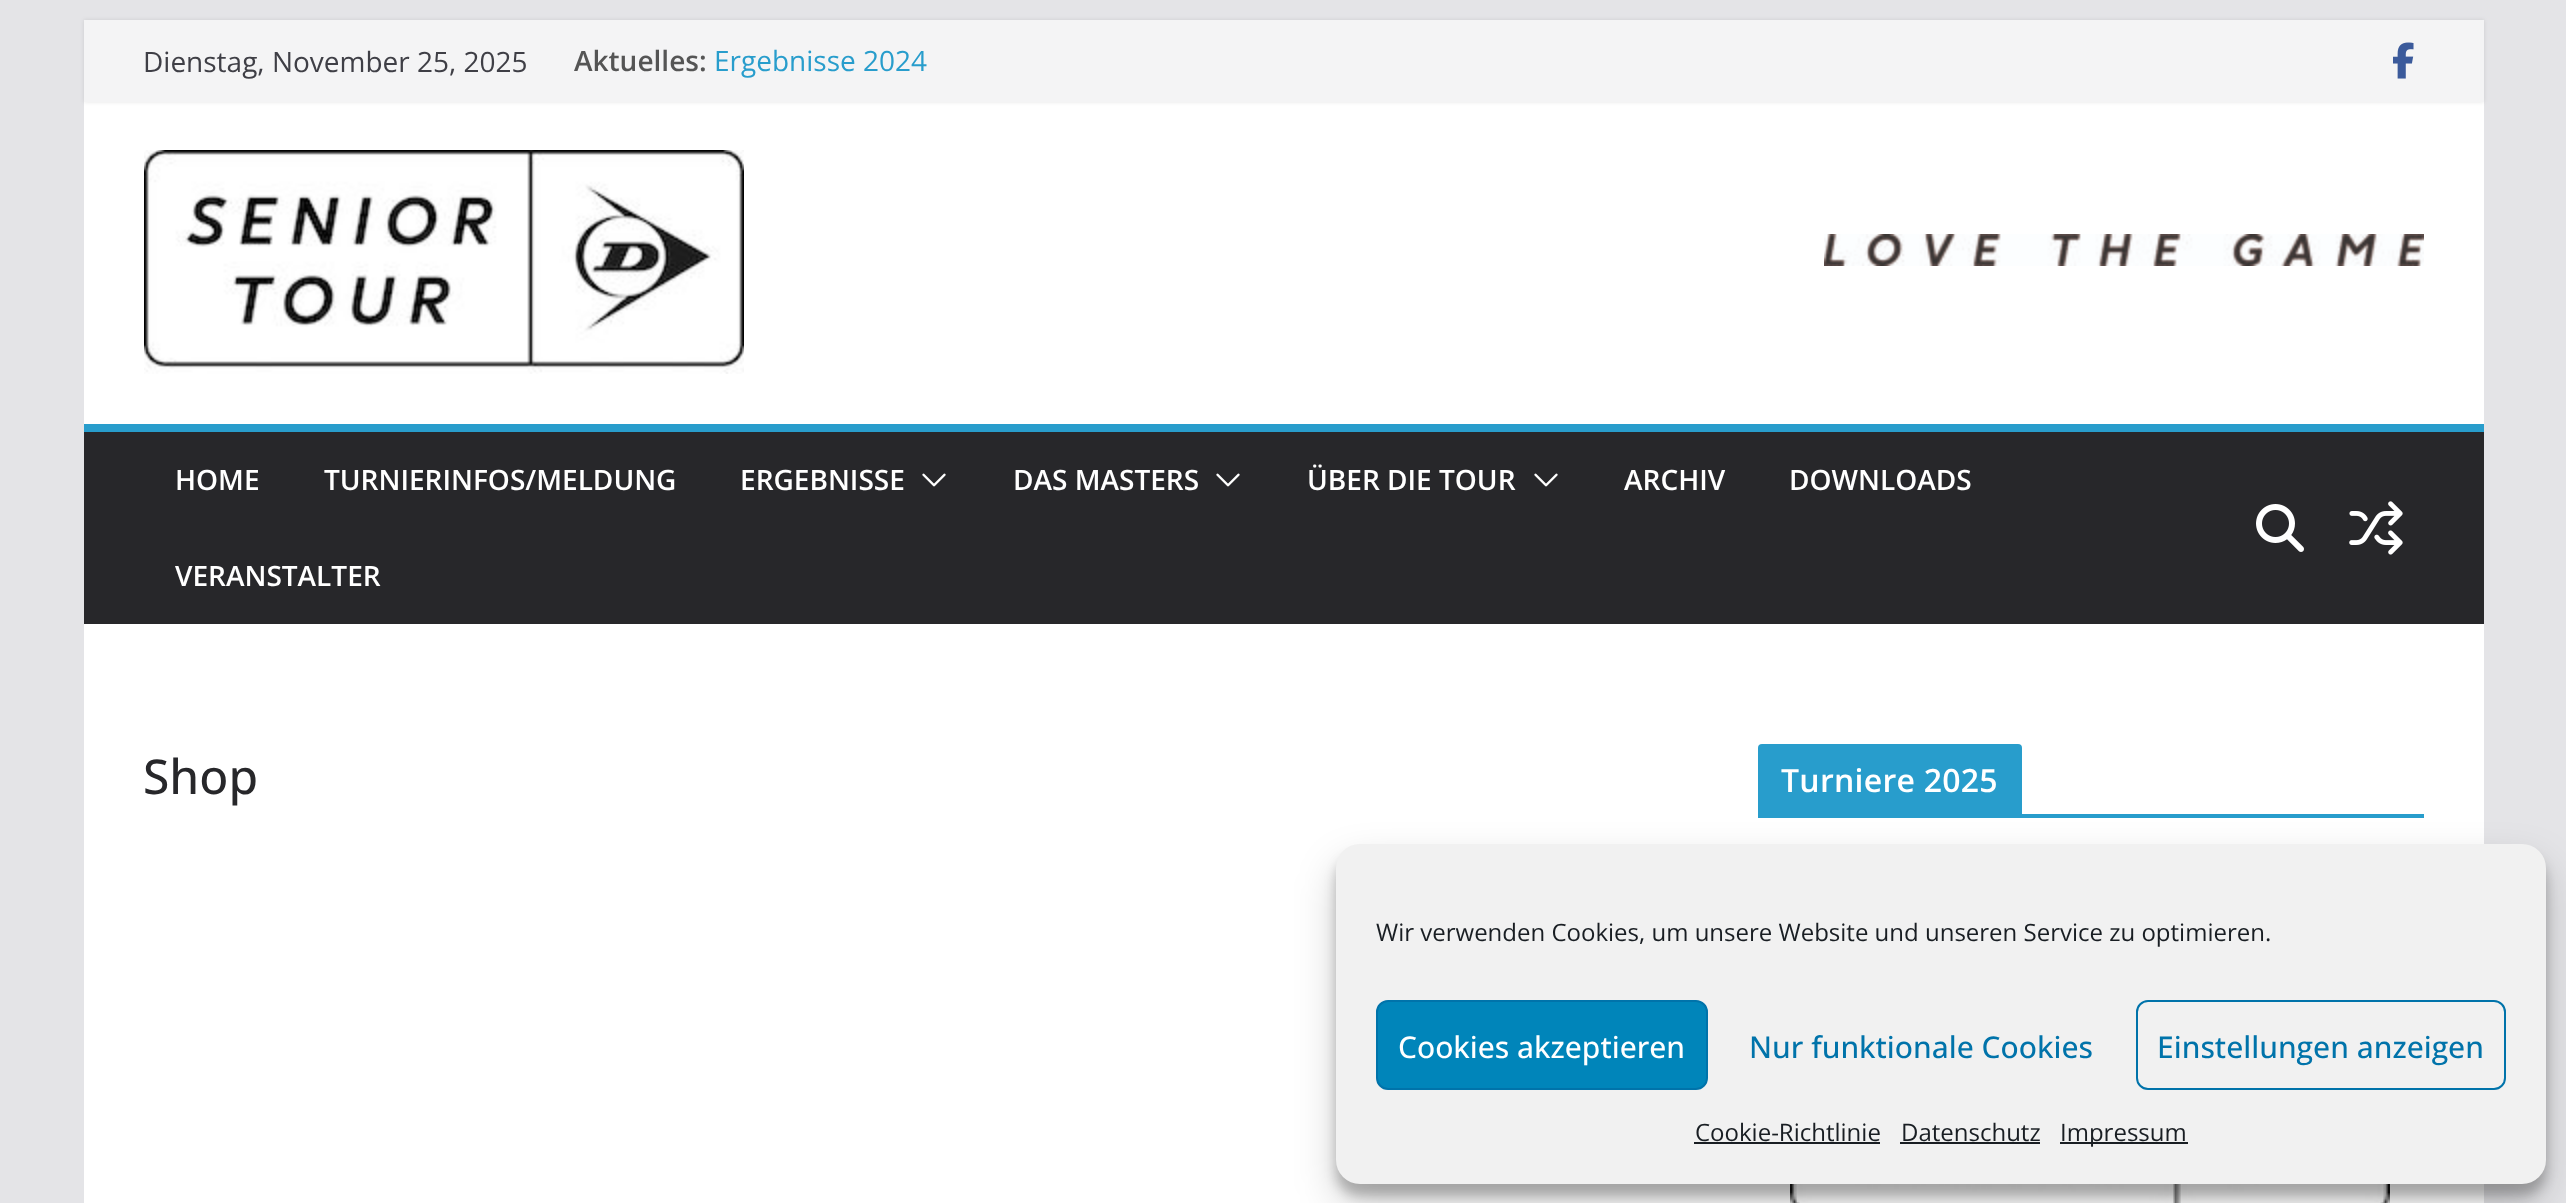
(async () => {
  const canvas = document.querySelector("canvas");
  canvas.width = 2566;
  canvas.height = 1203;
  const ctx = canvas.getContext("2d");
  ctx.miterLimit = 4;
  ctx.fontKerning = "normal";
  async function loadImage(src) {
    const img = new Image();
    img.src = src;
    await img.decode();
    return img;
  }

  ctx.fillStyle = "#e4e4e7";
  ctx.fillRect(0, 0, 2566, 1203);
  ctx.fillStyle = "#ffffff";
  ctx.fillRect(84, 102, 2400, 322);
  ctx.fillStyle = "rgba(0, 0, 0, 0.1)";
  ctx.filter = "blur(2px)";
  ctx.beginPath();
  ctx.rect(84, 20, 2400, 82);
  ctx.fill();
  ctx.filter = "none";
  ctx.fillStyle = "#f4f4f5";
  ctx.fillRect(84, 20, 2400, 82);
  ctx.drawImage(await loadImage("img/1.png"), 2393, 42, 21, 37);
  ctx.drawImage(await loadImage("img/2.png"), 144, 150, 600, 224);
  ctx.drawImage(await loadImage("img/3.png"), 1824, 234, 600, 32);
  ctx.fillStyle = "#27272a";
  ctx.fillRect(84, 432, 2400, 192);
  ctx.fillStyle = "#289dcc";
  ctx.fillRect(84, 424, 2400, 8);
  ctx.drawImage(await loadImage("img/4.png"), 922, 473, 24, 14);
  ctx.drawImage(await loadImage("img/4.png"), 1216, 473, 24, 14);
  ctx.drawImage(await loadImage("img/4.png"), 1534, 473, 24, 14);
  ctx.drawImage(await loadImage("img/5.png"), 2256, 504, 48, 48);
  ctx.drawImage(await loadImage("img/6.png"), 2349, 501, 54, 54);
  ctx.fillStyle = "#ffffff";
  ctx.fillRect(84, 624, 2400, 579);
  ctx.fillStyle = "#289dcc";
  ctx.fillRect(1758, 814, 666, 4);
  ctx.beginPath();
  ctx.roundRect(1758, 744, 264, 70, [4, 4, 0, 0]);
  ctx.fill();
  ctx.drawImage(await loadImage("img/7.png"), 1790, 1184, 600, 19);
  ctx.fillStyle = "rgba(0, 0, 0, 0.23)";
  ctx.filter = "blur(6px)";
  ctx.beginPath();
  ctx.roundRect(1336, 856, 1210, 340, 24);
  ctx.fill();
  ctx.filter = "none";
  ctx.fillStyle = "rgba(0, 0, 0, 0.19)";
  ctx.filter = "blur(20px)";
  ctx.beginPath();
  ctx.roundRect(1336, 864, 1210, 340, 24);
  ctx.fill();
  ctx.filter = "none";
  ctx.fillStyle = "#f1f1f1";
  ctx.beginPath();
  ctx.roundRect(1336, 844, 1210, 340, 24);
  ctx.fill();
  ctx.fillStyle = "#0085ba";
  ctx.beginPath();
  ctx.roundRect(1377, 1001, 330, 88, 11);
  ctx.fill();
  ctx.strokeStyle = "#0073aa";
  ctx.lineWidth = 2;
  ctx.stroke();
  ctx.beginPath();
  ctx.roundRect(2137, 1001, 368, 88, 11);
  ctx.stroke();
  for (const [x, y, w, h, color] of [
    [1694, 1142, 186, 2, "#191e23"],
    [1900, 1142, 140, 2, "#191e23"],
    [2060, 1142, 128, 2, "#191e23"],
  ]) {
    ctx.fillStyle = color;
    ctx.fillRect(x, y, w, h);
  }
  ctx.font = "28px Open Sans";
  ctx.fillStyle = "#3f3f46";
  ctx.fillText("Dienstag, November 25, 2025", 143, 72);
  ctx.font = "600 28px Open Sans";
  ctx.fillStyle = "#555555";
  ctx.fillText("Aktuelles:", 574, 71);
  ctx.font = "28px Open Sans";
  ctx.fillStyle = "#289dcc";
  ctx.fillText("Ergebnisse 2024", 714, 71);
  ctx.font = "600 28px Open Sans";
  ctx.fillStyle = "#ffffff";
  for (const [text, x, y] of [
    ["HOME", 175, 490],
    ["TURNIERINFOS/MELDUNG", 324, 490],
    ["ERGEBNISSE", 740, 490],
    ["DAS MASTERS", 1013, 490],
    ["ÜBER DIE TOUR", 1307, 490],
    ["ARCHIV", 1624, 490],
    ["DOWNLOADS", 1789, 490],
    ["VERANSTALTER", 175, 586],
  ]) {
    ctx.fillText(text, x, y);
  }
  ctx.font = "500 48px Open Sans";
  ctx.fillStyle = "#27272a";
  ctx.fillText("Shop", 143, 794);
  ctx.letterSpacing = "0.25px";
  ctx.font = "600 32px Open Sans";
  ctx.fillStyle = "#ffffff";
  ctx.fillText("Turniere 2025", 1781, 792);
  ctx.letterSpacing = "0px";
  ctx.font = "24px Open Sans";
  ctx.fillStyle = "#191e23";
  ctx.fillText("Wir verwenden Cookies, um unsere Website und unseren Service zu optimieren.", 1376, 941);
  ctx.font = "500 30px Open Sans";
  ctx.fillStyle = "#ffffff";
  ctx.fillText("Cookies akzeptieren", 1398, 1058);
  ctx.fillStyle = "#0073aa";
  ctx.fillText("Nur funktionale Cookies", 1749, 1058);
  ctx.fillText("Einstellungen anzeigen", 2157, 1058);
  ctx.font = "24px Open Sans";
  ctx.fillStyle = "#191e23";
  for (const [text, x, y] of [
    ["Cookie-Richtlinie", 1695, 1141],
    ["Datenschutz", 1901, 1141],
    ["Impressum", 2060, 1141],
  ]) {
    ctx.fillText(text, x, y);
  }
})();
